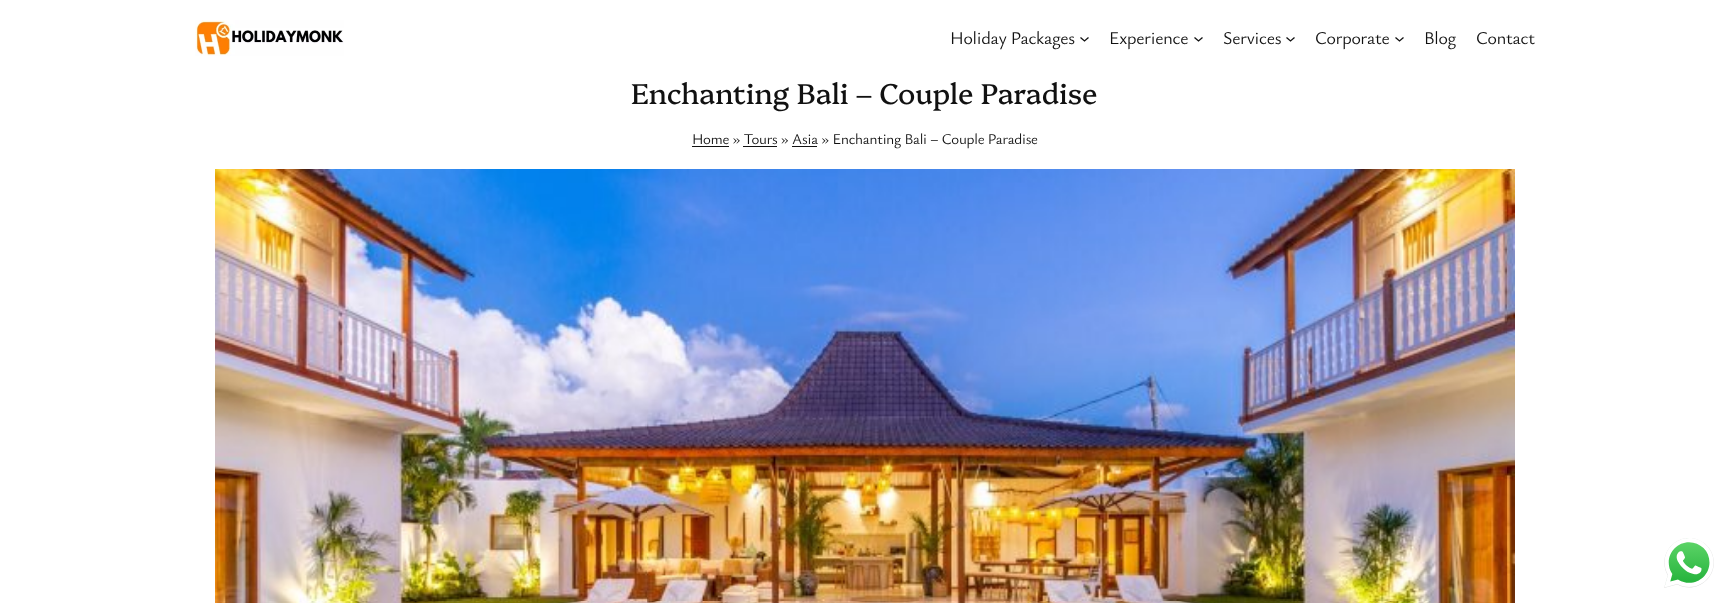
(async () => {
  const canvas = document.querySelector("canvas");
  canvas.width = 1729;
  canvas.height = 603;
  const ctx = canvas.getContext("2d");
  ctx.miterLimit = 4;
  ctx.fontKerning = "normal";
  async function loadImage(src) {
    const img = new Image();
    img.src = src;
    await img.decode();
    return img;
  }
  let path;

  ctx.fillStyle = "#ffffff";
  ctx.fillRect(0, 0, 1729, 603);
  ctx.drawImage(await loadImage("img/1.png"), 195, 20, 149, 36);
  path = new Path2D("M1080.5 37.5L1084.5 41L1088.5 37.5");
  ctx.strokeStyle = "#111111";
  ctx.lineWidth = 1.3;
  ctx.stroke(path);
  path = new Path2D("M1194.5 37.5L1198.5 41L1202.5 37.5");
  ctx.stroke(path);
  path = new Path2D("M1286.5 37.5L1290.5 41L1294.5 37.5");
  ctx.stroke(path);
  path = new Path2D("M1395.5 37.5L1399.5 41L1403.5 37.5");
  ctx.stroke(path);
  for (const [x, y, w, h, color] of [
    [692, 146, 37, 1, "#111111"],
    [743, 146, 34, 1, "#111111"],
    [792, 146, 25, 1, "#111111"],
  ]) {
    ctx.fillStyle = color;
    ctx.fillRect(x, y, w, h);
  }
  ctx.drawImage(await loadImage("img/2.png"), 215, 169, 1300, 434);
  ctx.drawImage(await loadImage("img/3.png"), 1664, 538, 50, 50);
  ctx.letterSpacing = "-0.22px";
  ctx.font = "18px Ysabeau Office";
  for (const [text, x, y] of [
    ["Holiday Packages", 950, 44],
    ["Experience", 1109, 44],
    ["Services", 1223, 44],
    ["Corporate", 1315, 44],
    ["Blog", 1424, 44],
    ["Contact", 1476, 44],
  ]) {
    ctx.fillText(text, x, y);
  }
  ctx.letterSpacing = "-0.1px";
  ctx.font = "28.75px Platypi";
  ctx.fillText("Enchanting Bali – Couple Paradise", 631, 104);
  ctx.letterSpacing = "-0.22px";
  ctx.font = "15px Ysabeau Office";
  ctx.fillText("Home » Tours » Asia » Enchanting Bali – Couple Paradise", 692, 144);
})();
